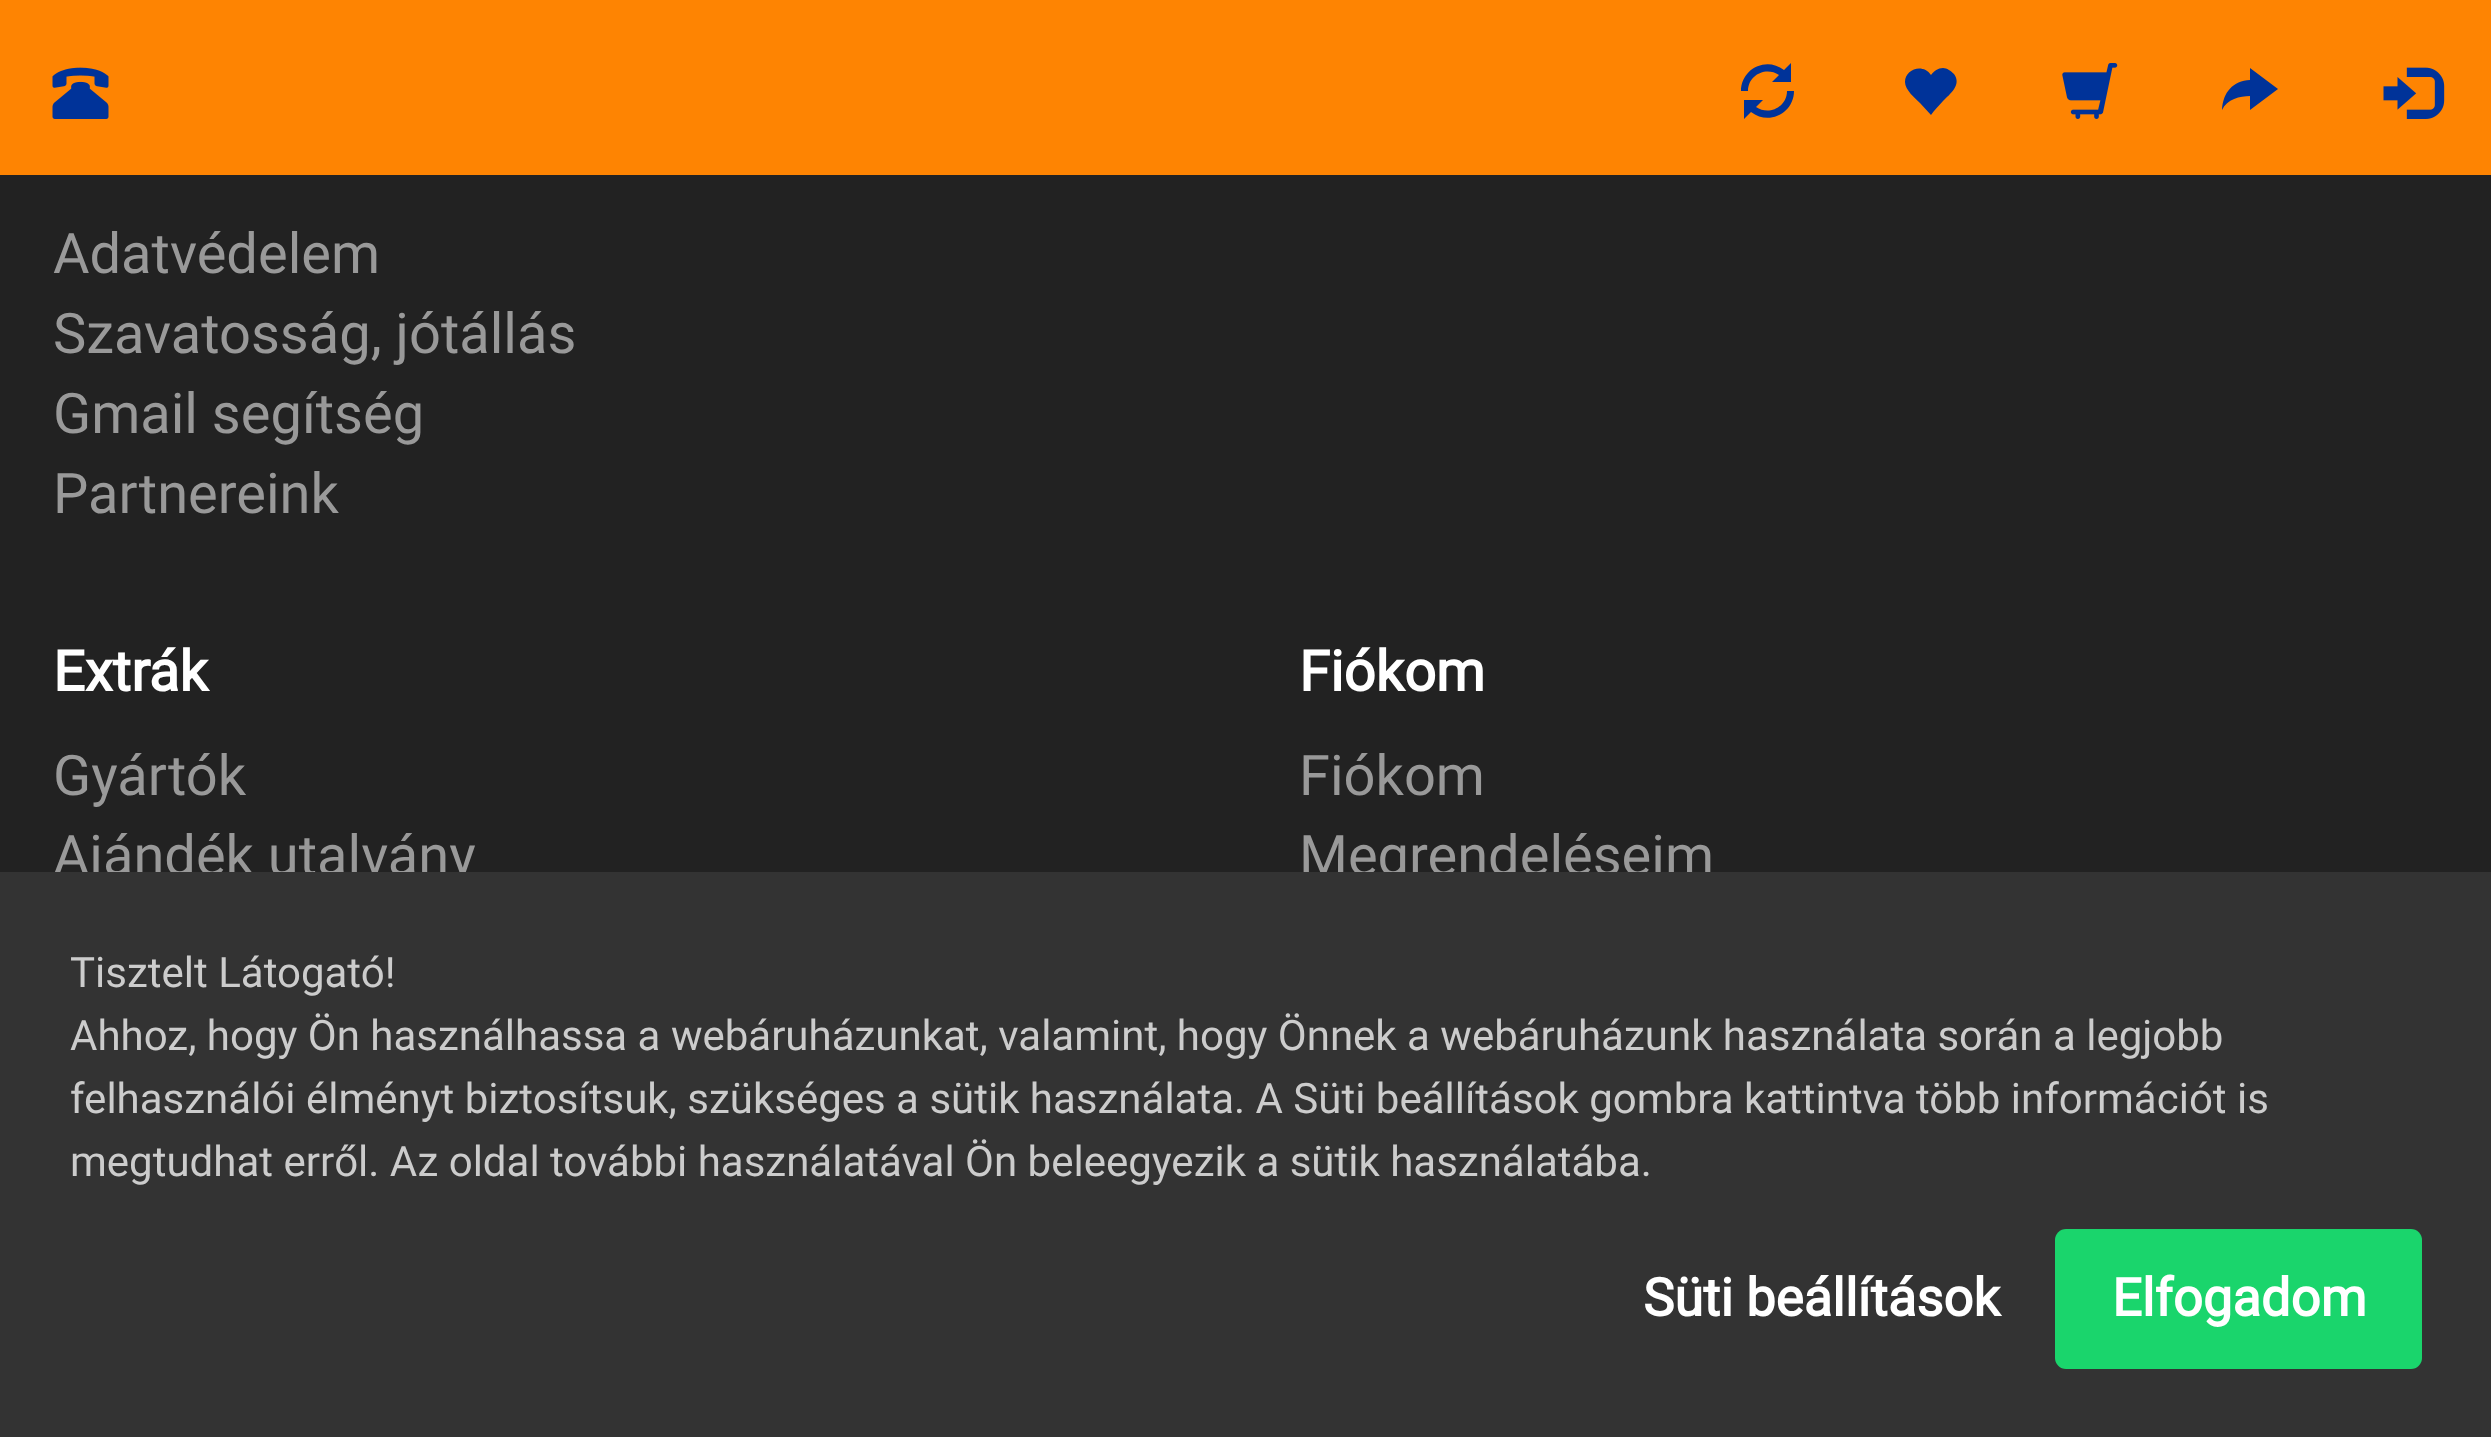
(async () => {
  const canvas = document.querySelector("canvas");
  canvas.width = 2491;
  canvas.height = 1437;
  const ctx = canvas.getContext("2d");
  ctx.miterLimit = 4;
  ctx.fontKerning = "normal";
  async function loadImage(src) {
    const img = new Image();
    img.src = src;
    await img.decode();
    return img;
  }
  let path;

  ctx.fillStyle = "#222222";
  ctx.fillRect(0, 0, 2491, 1437);
  ctx.fillStyle = "#fe8402";
  ctx.fillRect(0, 0, 2491, 175);
  ctx.drawImage(await loadImage("img/1.png"), 52, 67, 57, 52);
  ctx.fillStyle = "#003399";
  path = new Path2D("M1741 91C1741 69 1766 56 1784 70L1791 63V82H1772L1779 75C1766 66 1748 75 1748 91ZM1744 119V100H1763L1756 107C1769 116 1787 107 1787 91H1794C1794 113 1769 126 1751 112Z");
  ctx.fill(path);
  path = new Path2D("M1905 82C1905 69 1923 63 1931 75C1934 71 1938 68 1943 68C1947 68 1951 71 1954 74C1962 85 1950 94 1943 101C1939 106 1934 110 1931 115L1920 103C1915 98 1905 90 1905 82Z");
  ctx.fill(path);
  ctx.drawImage(await loadImage("img/2.png"), 2062, 63, 56, 56);
  path = new Path2D("M2222 110C2223 92 2233 81 2250 80V68L2278 89L2250 110V96C2240 96 2227 99 2222 110Z");
  ctx.fill(path);
  ctx.drawImage(await loadImage("img/3.png"), 2383, 67, 62, 52);
  ctx.font = "56px Roboto";
  ctx.fillStyle = "#999999";
  for (const [text, x, y] of [
    ["Adatvédelem", 53, 273],
    ["Szavatosság, jótállás", 53, 353],
    ["Gmail segítség", 53, 433],
    ["Partnereink", 53, 513],
  ]) {
    ctx.fillText(text, x, y);
  }
  ctx.font = "bold 56px Roboto";
  ctx.fillStyle = "#ffffff";
  ctx.fillText("Extrák", 53, 691);
  ctx.font = "56px Roboto";
  ctx.fillStyle = "#999999";
  ctx.fillText("Gyártók", 53, 795);
  ctx.fillText("Ajándék utalvány", 53, 875);
  ctx.font = "bold 56px Roboto";
  ctx.fillStyle = "#ffffff";
  ctx.fillText("Fiókom", 1299, 691);
  ctx.font = "56px Roboto";
  ctx.fillStyle = "#999999";
  ctx.fillText("Fiókom", 1299, 795);
  ctx.fillText("Megrendeléseim", 1299, 875);
  ctx.fillStyle = "#333333";
  ctx.fillRect(0, 872, 2491, 565);
  ctx.font = "42px Roboto";
  ctx.fillStyle = "#cccccc";
  for (const [text, x, y] of [
    ["Tisztelt Látogató!", 70, 987],
    ["Ahhoz, hogy Ön használhassa a webáruházunkat, valamint, hogy Önnek a webáruházunk használata során a legjobb", 70, 1050],
    ["felhasználói élményt biztosítsuk, szükséges a sütik használata. A Süti beállítások gombra kattintva több információt is", 70, 1113],
    ["megtudhat erről. Az oldal további használatával Ön beleegyezik a sütik használatába.", 70, 1176],
  ]) {
    ctx.fillText(text, x, y);
  }
  ctx.font = "bold 52.5px Roboto";
  ctx.fillStyle = "#ffffff";
  ctx.fillText("Süti beállítások", 1643, 1316);
  ctx.fillStyle = "#1ad56c";
  ctx.beginPath();
  ctx.roundRect(2055, 1229, 367, 140, 11);
  ctx.fill();
  ctx.fillStyle = "#ffffff";
  ctx.fillText("Elfogadom", 2112, 1316);
})();
